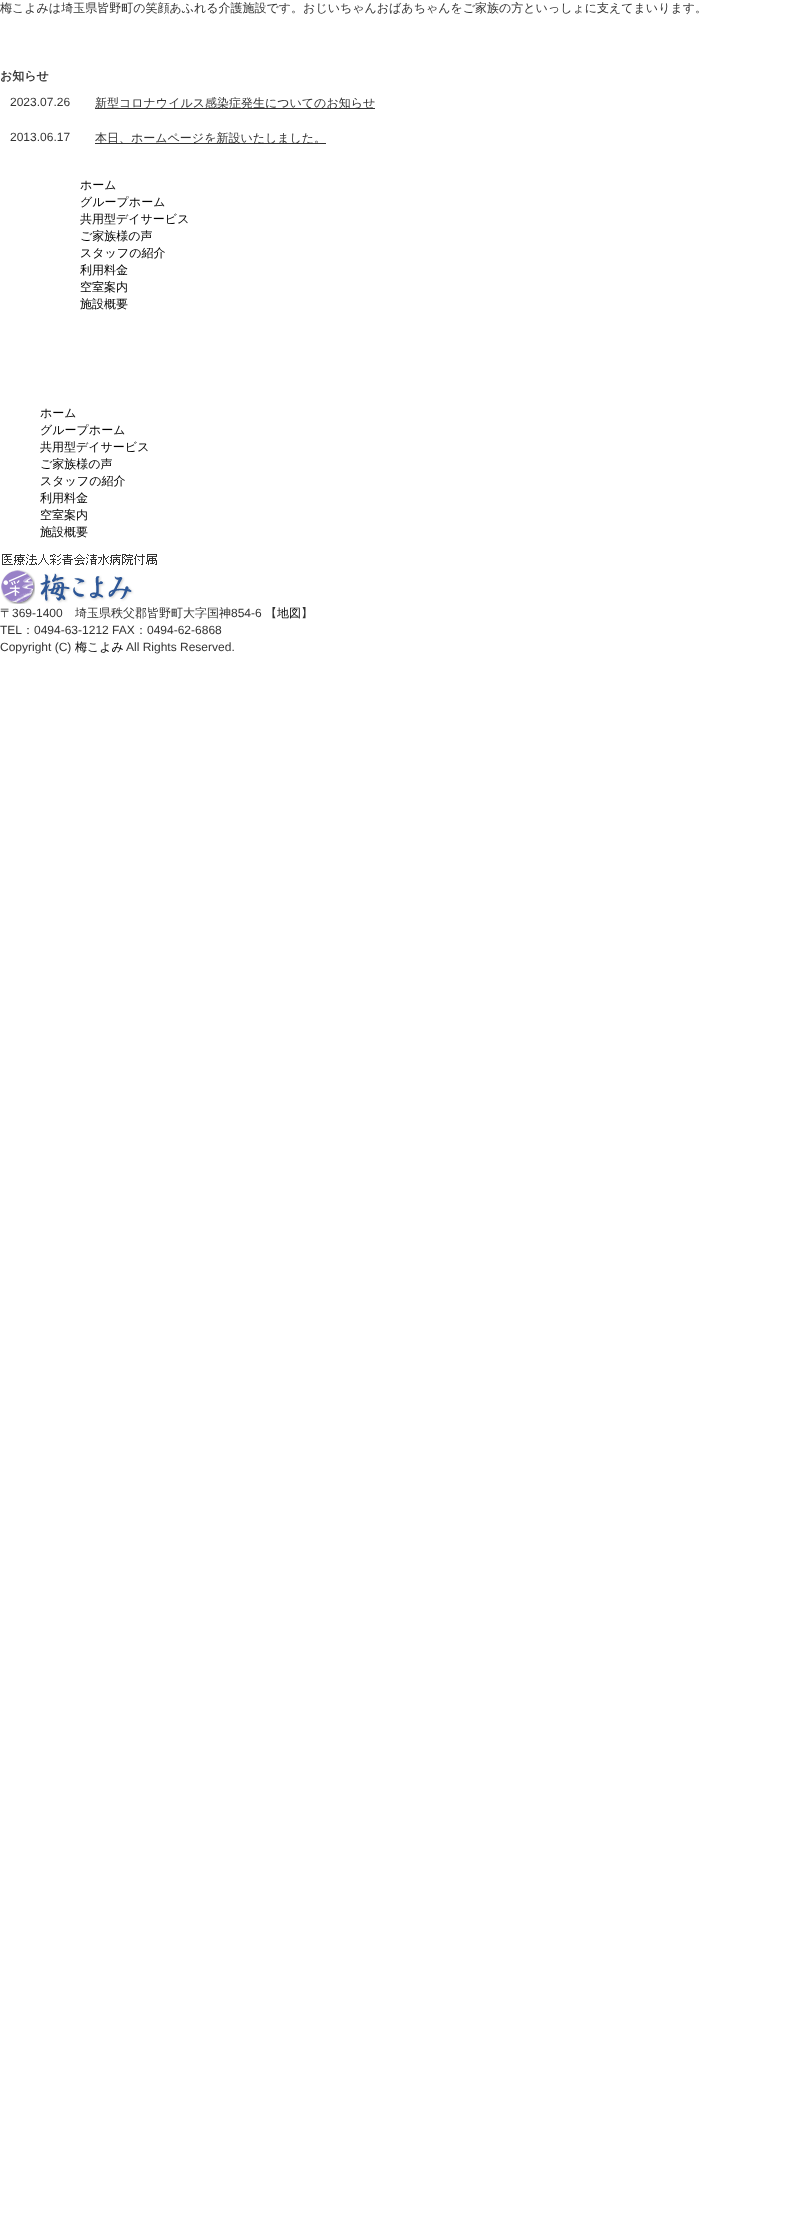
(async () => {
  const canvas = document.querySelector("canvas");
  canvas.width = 803;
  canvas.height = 2237;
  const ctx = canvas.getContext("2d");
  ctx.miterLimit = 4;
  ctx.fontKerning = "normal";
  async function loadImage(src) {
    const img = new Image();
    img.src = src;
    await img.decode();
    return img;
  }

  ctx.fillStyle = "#ffffff";
  ctx.fillRect(0, 0, 803, 2237);
  ctx.fillStyle = "#333333";
  ctx.fillRect(95, 108, 280, 1);
  ctx.fillRect(95, 143, 231, 1);
  ctx.drawImage(await loadImage("img/1.png"), 1, 554, 156, 50);
  ctx.font = "500 12px WenQuanYi Zen Hei";
  ctx.fillText("梅こよみは埼玉県皆野町の笑顔あふれる介護施設です。おじいちゃんおばあちゃんをご家族の方といっしょに支えてまいります。", 0, 12);
  ctx.font = "bold 12px WenQuanYi Zen Hei";
  ctx.fillText("お知らせ", 0, 80);
  ctx.font = "12px Liberation Sans";
  ctx.fillText("2023.07.26", 10, 106);
  ctx.font = "500 12px WenQuanYi Zen Hei";
  ctx.fillText("新型コロナウイルス感染症発生についてのお知らせ", 95, 107);
  ctx.font = "12px Liberation Sans";
  ctx.fillText("2013.06.17", 10, 141);
  ctx.font = "500 12px WenQuanYi Zen Hei";
  ctx.fillText("本日、ホームページを新設いたしました。", 95, 142);
  ctx.fillStyle = "#000000";
  for (const [text, x, y] of [
    ["ホーム", 80, 189],
    ["グループホーム", 80, 206],
    ["共用型デイサービス", 80, 223],
    ["ご家族様の声", 80, 240],
    ["スタッフの紹介", 80, 257],
    ["利用料金", 80, 274],
    ["空室案内", 80, 291],
    ["施設概要", 80, 308],
    ["ホーム", 40, 417],
    ["グループホーム", 40, 434],
    ["共用型デイサービス", 40, 451],
    ["ご家族様の声", 40, 468],
    ["スタッフの紹介", 40, 485],
    ["利用料金", 40, 502],
    ["空室案内", 40, 519],
    ["施設概要", 40, 536],
  ]) {
    ctx.fillText(text, x, y);
  }
  ctx.fillStyle = "#333333";
  ctx.fillText("〒", 0, 617);
  ctx.font = "12px Liberation Sans";
  ctx.fillText("369-1400", 12, 617);
  ctx.font = "500 12px WenQuanYi Zen Hei";
  ctx.fillText("埼玉県秩父郡皆野町大字国神", 75, 617);
  ctx.font = "12px Liberation Sans";
  ctx.fillText("854-6", 231, 617);
  ctx.font = "500 12px WenQuanYi Zen Hei";
  ctx.fillText("【", 265, 617);
  ctx.fillStyle = "#000000";
  ctx.fillText("地図", 277, 617);
  ctx.fillStyle = "#333333";
  ctx.fillText("】", 301, 617);
  ctx.font = "12px Liberation Sans";
  ctx.fillText("TEL", 0, 634);
  ctx.font = "500 12px WenQuanYi Zen Hei";
  ctx.fillText("：", 22, 634);
  ctx.font = "12px Liberation Sans";
  ctx.fillText("0494-63-1212 FAX", 34, 634);
  ctx.font = "500 12px WenQuanYi Zen Hei";
  ctx.fillText("：", 135, 634);
  ctx.font = "12px Liberation Sans";
  ctx.fillText("0494-62-6868", 147, 634);
  ctx.fillText("Copyright (C)", 0, 651);
  ctx.font = "500 12px WenQuanYi Zen Hei";
  ctx.fillStyle = "#000000";
  ctx.fillText("梅こよみ", 75, 651);
  ctx.font = "12px Liberation Sans";
  ctx.fillStyle = "#333333";
  ctx.fillText("All Rights Reserved.", 126, 651);
})();
